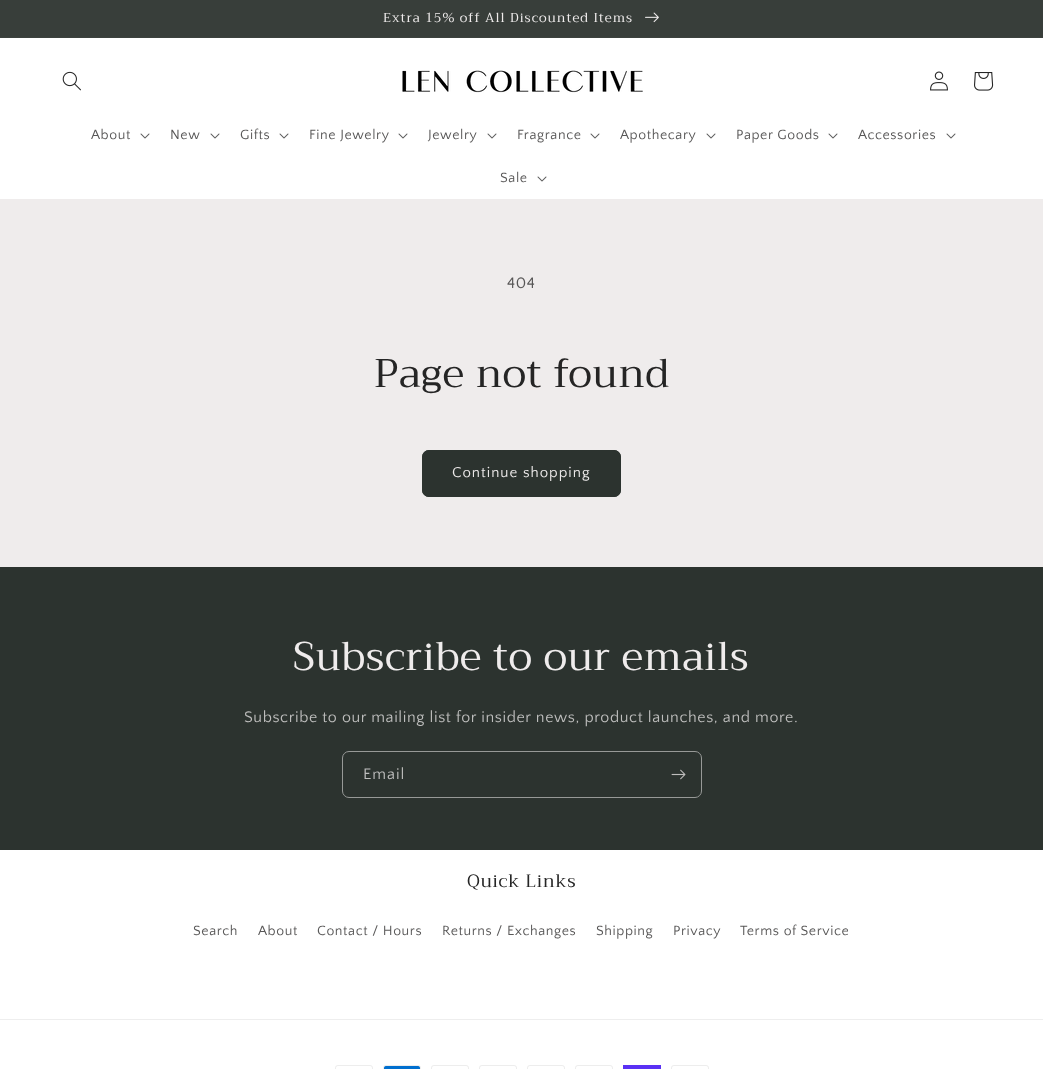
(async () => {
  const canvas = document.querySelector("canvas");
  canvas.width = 1043;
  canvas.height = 1069;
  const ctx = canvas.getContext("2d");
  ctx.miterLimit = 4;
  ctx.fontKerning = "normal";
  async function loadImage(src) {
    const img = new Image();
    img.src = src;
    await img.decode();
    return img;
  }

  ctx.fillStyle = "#efecec";
  ctx.fillRect(0, 0, 1043, 1069);
  ctx.fillStyle = "#3c423e";
  ctx.fillRect(0, 37, 1043, 1);
  ctx.fillStyle = "#383e3a";
  ctx.fillRect(0, 0, 1043, 37);
  ctx.drawImage(await loadImage("img/1.png"), 645, 12, 14, 11);
  ctx.fillStyle = "#ffffff";
  ctx.fillRect(0, 38, 1043, 161);
  ctx.drawImage(await loadImage("img/2.png"), 62, 71, 19, 20);
  ctx.drawImage(await loadImage("img/3.png"), 402, 70, 241, 23);
  ctx.drawImage(await loadImage("img/4.png"), 930, 71, 18, 20);
  ctx.drawImage(await loadImage("img/5.png"), 974, 72, 20, 19);
  ctx.drawImage(await loadImage("img/6.png"), 140, 133, 10, 6);
  ctx.drawImage(await loadImage("img/6.png"), 210, 133, 10, 6);
  ctx.drawImage(await loadImage("img/6.png"), 279, 133, 10, 6);
  ctx.drawImage(await loadImage("img/6.png"), 398, 133, 10, 6);
  ctx.drawImage(await loadImage("img/6.png"), 487, 133, 10, 6);
  ctx.drawImage(await loadImage("img/6.png"), 590, 133, 10, 6);
  ctx.drawImage(await loadImage("img/6.png"), 706, 133, 10, 6);
  ctx.drawImage(await loadImage("img/6.png"), 828, 133, 10, 6);
  ctx.drawImage(await loadImage("img/6.png"), 946, 133, 10, 6);
  ctx.drawImage(await loadImage("img/6.png"), 537, 176, 10, 6);
  ctx.fillStyle = "#2c332f";
  ctx.beginPath();
  ctx.roundRect(422, 450, 199, 47, 7);
  ctx.fill();
  ctx.beginPath();
  ctx.roundRect(422.5, 450.5, 198, 46, 6.5);
  ctx.strokeStyle = "#2c332f";
  ctx.stroke();
  ctx.fillRect(0, 567, 1043, 283);
  ctx.beginPath();
  ctx.roundRect(342.5, 751.5, 359, 46, 6.5);
  ctx.strokeStyle = "#979997";
  ctx.stroke();
  ctx.drawImage(await loadImage("img/7.png"), 671, 769, 15, 11);
  ctx.fillStyle = "#ffffff";
  ctx.fillRect(0, 850, 1043, 219);
  ctx.fillStyle = "#eeeeee";
  ctx.fillRect(0, 1019, 1043, 1);
  ctx.drawImage(await loadImage("img/8.png"), 335, 1065, 38, 4);
  ctx.drawImage(await loadImage("img/9.png"), 383, 1065, 38, 4);
  ctx.drawImage(await loadImage("img/8.png"), 431, 1065, 38, 4);
  ctx.drawImage(await loadImage("img/8.png"), 479, 1065, 38, 4);
  ctx.drawImage(await loadImage("img/8.png"), 527, 1065, 38, 4);
  ctx.drawImage(await loadImage("img/8.png"), 575, 1065, 38, 4);
  ctx.fillStyle = "#5a31f4";
  ctx.fillRect(623, 1065, 38, 4);
  ctx.drawImage(await loadImage("img/8.png"), 671, 1065, 38, 4);
  ctx.letterSpacing = "1px";
  ctx.font = "13px Trirong";
  ctx.fillStyle = "#efecec";
  ctx.fillText("Extra 15% off All Discounted Items", 383, 22);
  ctx.letterSpacing = "0.6px";
  ctx.font = "14px Quattrocento Sans";
  ctx.fillStyle = "#585757";
  for (const [text, x, y] of [
    ["About", 91, 139],
    ["New", 170, 139],
    ["Gifts", 240, 139],
    ["Fine Jewelry", 309, 139],
    ["Jewelry", 428, 139],
    ["Fragrance", 517, 139],
    ["Apothecary", 620, 139],
    ["Paper Goods", 736, 139],
    ["Accessories", 858, 139],
    ["Sale", 500, 182],
  ]) {
    ctx.fillText(text, x, y);
  }
  ctx.font = "16px Quattrocento Sans";
  ctx.fillText("404", 507, 288);
  ctx.font = "40px Trirong";
  ctx.fillStyle = "#252525";
  ctx.fillText("Page not found", 374, 387);
  ctx.letterSpacing = "1px";
  ctx.font = "15px Quattrocento Sans";
  ctx.fillStyle = "#efecec";
  ctx.fillText("Continue shopping", 452, 477);
  ctx.letterSpacing = "0.6px";
  ctx.font = "40px Trirong";
  ctx.fillText("Subscribe to our emails", 293, 670);
  ctx.font = "16px Quattrocento Sans";
  ctx.fillStyle = "#bebebd";
  ctx.fillText("Subscribe to our mailing list for insider news, product launches, and more.", 244, 722);
  ctx.letterSpacing = "1px";
  ctx.fillText("Email", 363, 779);
  ctx.letterSpacing = "0.6px";
  ctx.font = "18px Trirong";
  ctx.fillStyle = "#252525";
  ctx.fillText("Quick Links", 467, 887);
  ctx.font = "14px Quattrocento Sans";
  ctx.fillStyle = "#585757";
  for (const [text, x, y] of [
    ["Search", 193, 935],
    ["About", 258, 935],
    ["Contact / Hours", 317, 935],
    ["Returns / Exchanges", 442, 935],
    ["Shipping", 596, 935],
    ["Privacy", 673, 935],
    ["Terms of Service", 740, 935],
  ]) {
    ctx.fillText(text, x, y);
  }
})();
